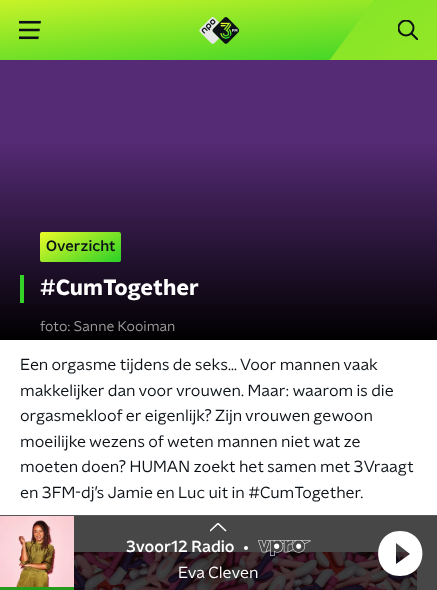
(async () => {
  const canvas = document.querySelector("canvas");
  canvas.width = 437;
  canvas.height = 590;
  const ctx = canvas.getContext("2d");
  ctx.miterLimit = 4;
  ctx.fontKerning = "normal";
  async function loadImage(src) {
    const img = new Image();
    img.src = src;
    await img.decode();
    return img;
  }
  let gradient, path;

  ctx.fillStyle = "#ffffff";
  ctx.fillRect(0, 0, 437, 590);
  ctx.fillStyle = "#474747";
  ctx.fillRect(74, 516, 363, 74);
  ctx.drawImage(await loadImage("img/1.png"), 0, 0, 437, 60);
  ctx.drawImage(await loadImage("img/2.png"), 19, 20, 22, 20);
  ctx.drawImage(await loadImage("img/3.png"), 199, 17, 40, 27);
  ctx.save();
  ctx.beginPath();
  ctx.rect(398, 20, 20, 20);
  ctx.clip();
  ctx.beginPath();
  ctx.arc(406, 28, 7.5, 0, Math.PI * 2);
  ctx.strokeStyle = "#0b1116";
  ctx.lineWidth = 2;
  ctx.stroke();
  path = new Path2D("M411.5 33.5L417.5 39.5");
  ctx.lineCap = "square";
  ctx.stroke(path);
  ctx.restore();
  ctx.fillStyle = "#552b75";
  ctx.fillRect(0, 60, 437, 80);
  gradient = ctx.createLinearGradient(219, 140, 219, 340);
  gradient.addColorStop(0, "#552b75");
  gradient.addColorStop(1, "#000000");
  ctx.fillStyle = gradient;
  ctx.fillRect(0, 140, 437, 200);
  gradient = ctx.createLinearGradient(62, 213, 97, 276);
  gradient.addColorStop(0, "#ffff28");
  gradient.addColorStop(0.93, "#35d327");
  ctx.fillStyle = gradient;
  ctx.beginPath();
  ctx.roundRect(40, 232, 81, 30, 2);
  ctx.fill();
  ctx.fillStyle = "#35d327";
  ctx.fillRect(20, 275, 4, 28);
  ctx.drawImage(await loadImage("img/4.png"), 74, 552, 343, 38);
  ctx.fillStyle = "#565656";
  ctx.fillRect(0, 515, 437, 1);
  ctx.drawImage(await loadImage("img/5.png"), 0, 516, 74, 71);
  ctx.fillStyle = "#279b1c";
  ctx.fillRect(0, 587, 74, 3);
  ctx.save();
  ctx.beginPath();
  ctx.rect(210, 523, 18, 9);
  ctx.clip();
  path = new Path2D("M226 531L218 523.5L210 531");
  ctx.strokeStyle = "#ffffff";
  ctx.lineWidth = 1.6;
  ctx.stroke(path);
  ctx.restore();
  ctx.fillStyle = "#ffffff";
  ctx.beginPath();
  ctx.arc(246, 548, 2, 0, Math.PI * 2);
  ctx.fill();
  ctx.drawImage(await loadImage("img/6.png"), 258, 540, 53, 16);
  path = new Path2D("M400 531C371 531 371 576 400 576C430 576 430 531 400 531ZM396 564V543L410 554Z");
  ctx.fill(path);
  ctx.font = "500 15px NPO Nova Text";
  ctx.fillStyle = "#0b1116";
  ctx.fillText("Overzicht", 46, 251);
  ctx.font = "bold 22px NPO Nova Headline";
  ctx.fillStyle = "#ffffff";
  ctx.fillText("#CumTogether", 40, 295);
  ctx.font = "14px NPO Nova Text";
  ctx.fillStyle = "#9b9a9c";
  ctx.fillText("foto: Sanne Kooiman", 40, 331);
  ctx.font = "16px NPO Nova Text";
  ctx.fillStyle = "#0b1116";
  for (const [text, x, y] of [
    ["Een orgasme tijdens de seks… Voor mannen vaak", 20, 370],
    ["makkelijker dan voor vrouwen. Maar: waarom is die", 20, 396],
    ["orgasmekloof er eigenlijk? Zijn vrouwen gewoon", 20, 421],
    ["moeilijke wezens of weten mannen niet wat ze", 20, 447],
    ["moeten doen? HUMAN zoekt het samen met 3Vraagt", 20, 472],
    ["en 3FM-dj’s Jamie en Luc uit in #CumTogether.", 20, 498],
  ]) {
    ctx.fillText(text, x, y);
  }
  ctx.font = "500 16px NPO Nova Text";
  ctx.fillStyle = "#ffffff";
  ctx.fillText("3voor12 Radio", 126, 552);
  ctx.font = "16px NPO Nova Text";
  ctx.fillText("Eva Cleven", 178, 578);
})();
